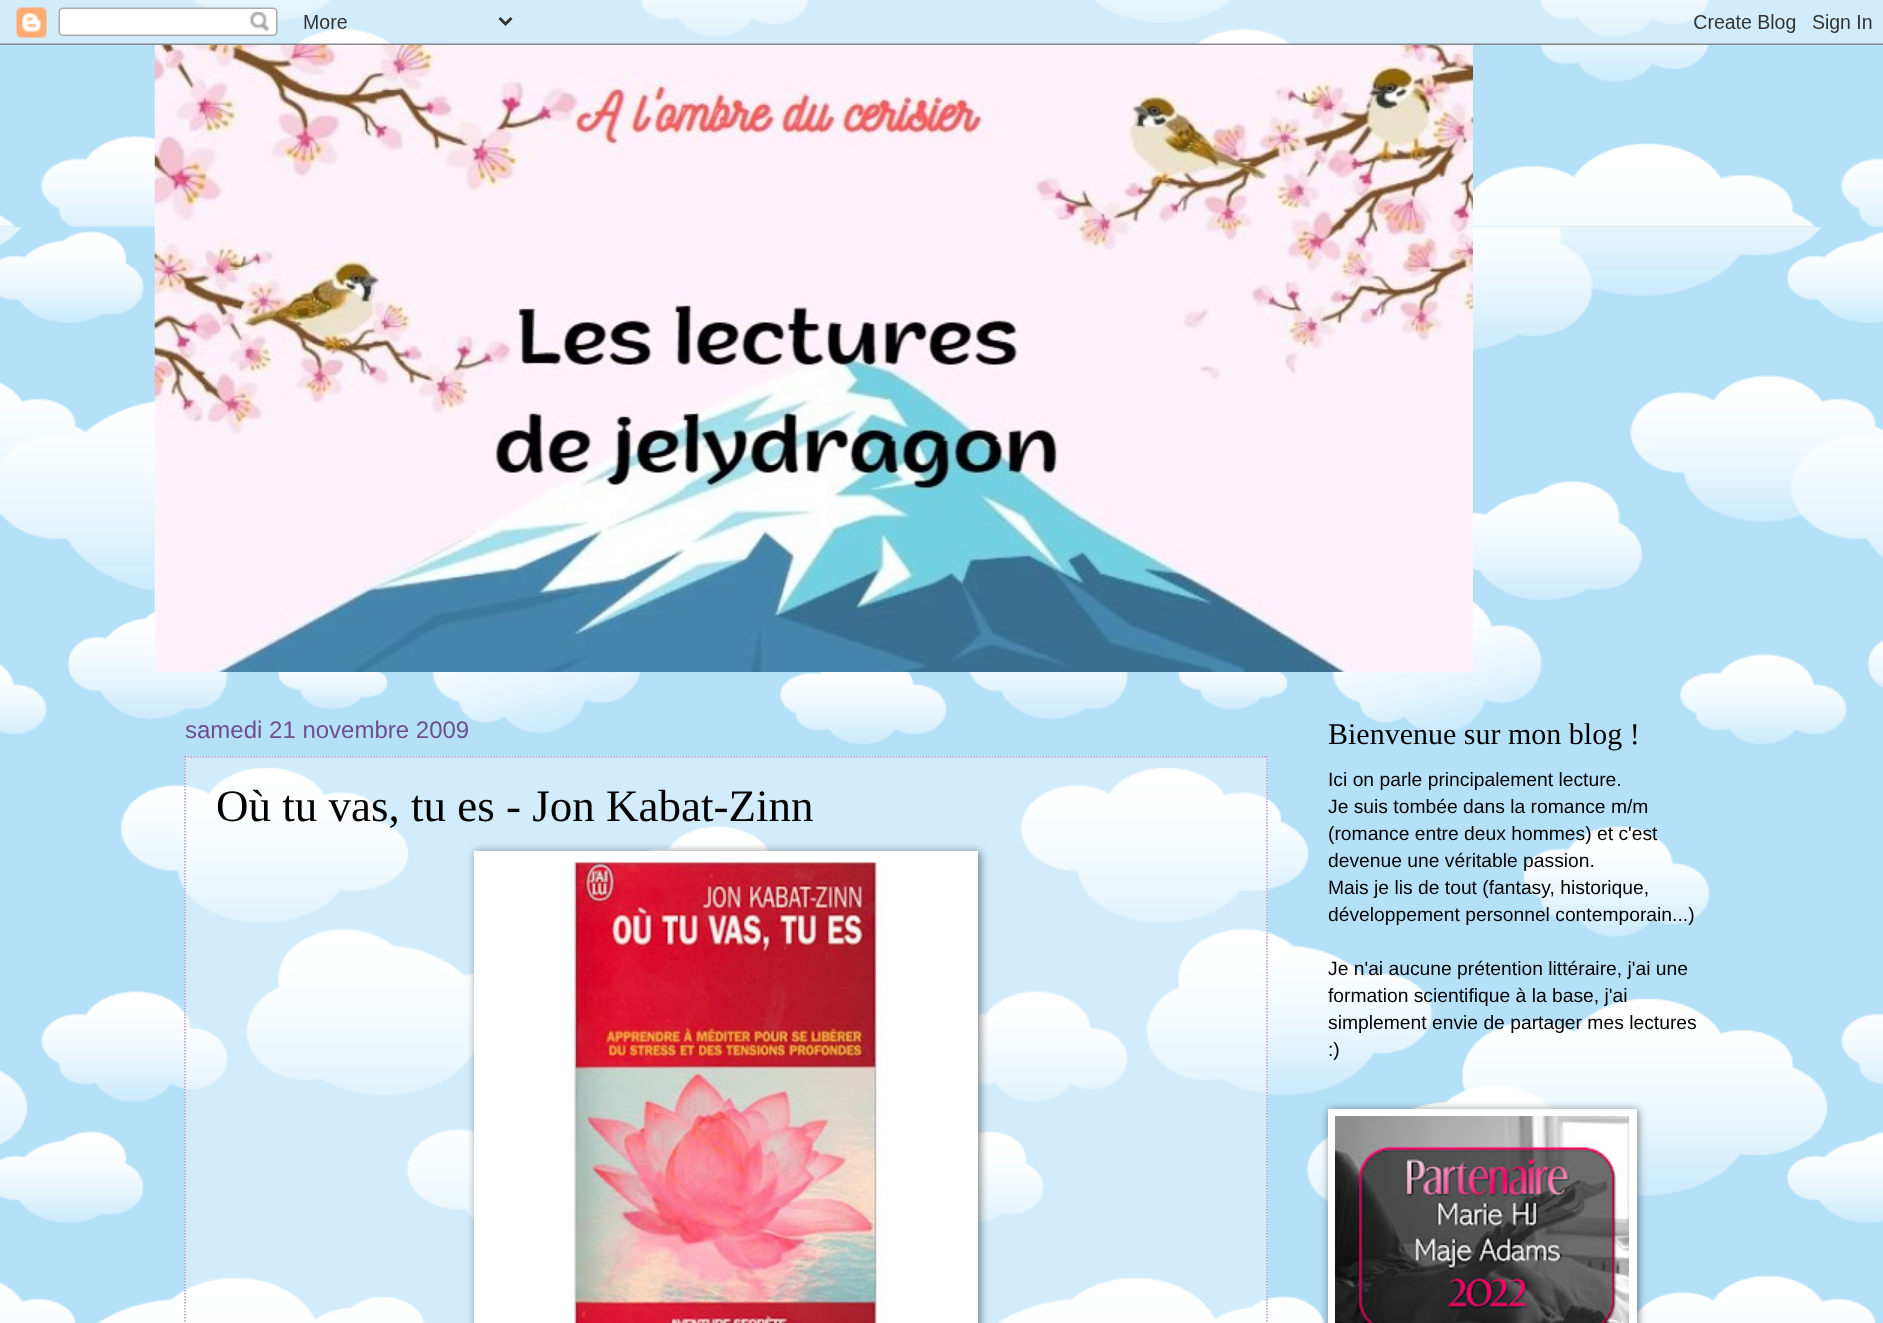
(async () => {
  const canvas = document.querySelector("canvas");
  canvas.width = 1883;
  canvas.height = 1323;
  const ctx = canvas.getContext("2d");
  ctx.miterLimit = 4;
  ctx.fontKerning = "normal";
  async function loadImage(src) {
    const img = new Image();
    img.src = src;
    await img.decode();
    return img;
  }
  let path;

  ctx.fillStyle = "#ffffff";
  ctx.fillRect(0, 0, 1883, 1323);
  ctx.drawImage(await loadImage("img/1.png"), 0, 0, 1883, 1323);
  ctx.drawImage(await loadImage("img/2.png"), 0, 0, 1883, 45);
  ctx.fillStyle = "#b4e0f8";
  ctx.fillRect(0, 226, 1823, 1);
  ctx.drawImage(await loadImage("img/3.png"), 0, 45, 1883, 182);
  ctx.drawImage(await loadImage("img/4.png"), 154, 45, 1319, 627);
  ctx.fillStyle = "rgba(255, 255, 255, 0.4)";
  ctx.fillRect(184, 756, 1084, 567);
  path = new Path2D("M184.5 757H1267.5");
  ctx.strokeStyle = "#b794ca";
  ctx.lineWidth = 1.5;
  ctx.setLineDash([1.5, 1.5]);
  ctx.stroke(path);
  path = new Path2D("M1267 756V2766");
  ctx.stroke(path);
  path = new Path2D("M185 756V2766");
  ctx.stroke(path);
  ctx.fillStyle = "rgba(0, 0, 0, 0.5)";
  ctx.filter = "blur(4px)";
  ctx.beginPath();
  ctx.rect(476, 852, 504, 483);
  ctx.fill();
  ctx.filter = "none";
  ctx.fillStyle = "#ffffff";
  ctx.fillRect(474, 851, 504, 472);
  ctx.drawImage(await loadImage("img/5.png"), 570, 862, 312, 461);
  ctx.fillStyle = "rgba(0, 0, 0, 0.5)";
  ctx.filter = "blur(4px)";
  ctx.beginPath();
  ctx.rect(1329, 1110, 309, 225);
  ctx.fill();
  ctx.filter = "none";
  ctx.fillStyle = "#ffffff";
  ctx.fillRect(1328, 1109, 309, 214);
  ctx.drawImage(await loadImage("img/6.png"), 1335, 1116, 294, 207);
  ctx.font = "24px Liberation Sans";
  ctx.fillStyle = "#6e4f8e";
  ctx.fillText("samedi 21 novembre 2009", 185, 738);
  ctx.font = "45px Liberation Serif";
  ctx.fillStyle = "#000000";
  ctx.fillText("Où tu vas, tu es - Jon Kabat-Zinn", 216, 821);
  ctx.font = "30px Liberation Serif";
  ctx.fillText("Bienvenue sur mon blog !", 1328, 744);
  ctx.font = "19.3px Liberation Sans";
  for (const [text, x, y] of [
    ["Ici on parle principalement lecture.", 1328, 786],
    ["Je suis tombée dans la romance m/m", 1328, 813],
    ["(romance entre deux hommes) et c'est", 1328, 840],
    ["devenue une véritable passion.", 1328, 867],
    ["Mais je lis de tout (fantasy, historique,", 1328, 894],
    ["développement personnel contemporain...)", 1328, 921],
    ["Je n'ai aucune prétention littéraire, j'ai une", 1328, 975],
    ["formation scientifique à la base, j'ai", 1328, 1002],
    ["simplement envie de partager mes lectures", 1328, 1029],
    [":)", 1328, 1056],
  ]) {
    ctx.fillText(text, x, y);
  }
})();
